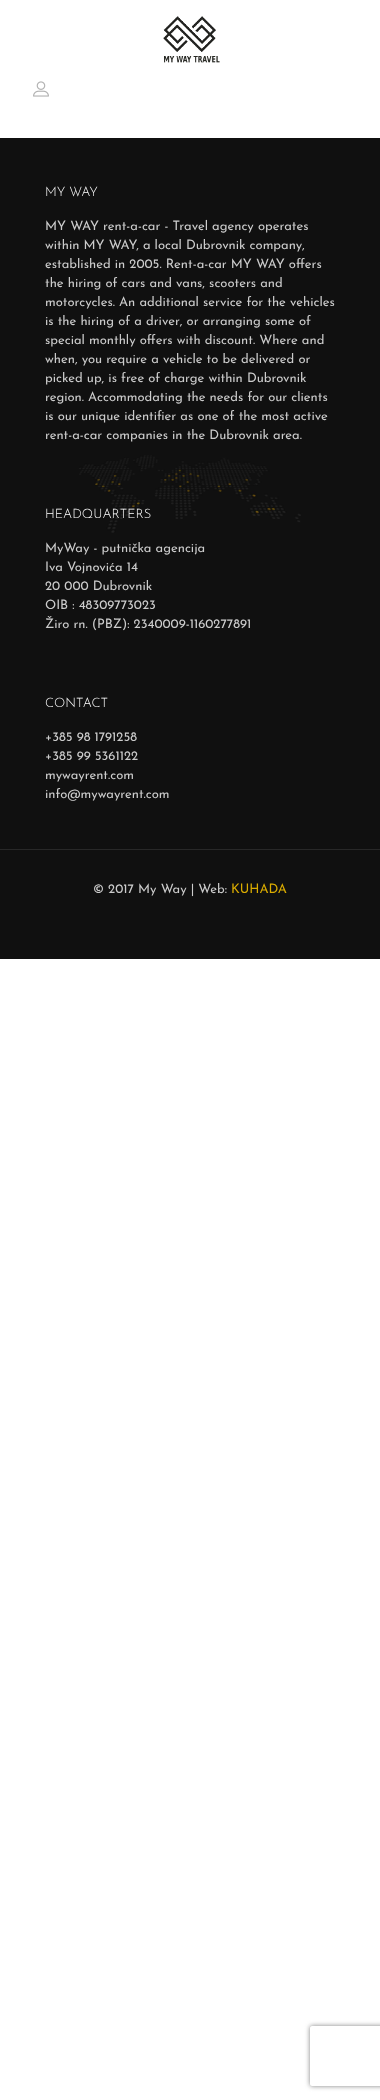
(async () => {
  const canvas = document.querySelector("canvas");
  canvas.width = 380;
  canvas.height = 2100;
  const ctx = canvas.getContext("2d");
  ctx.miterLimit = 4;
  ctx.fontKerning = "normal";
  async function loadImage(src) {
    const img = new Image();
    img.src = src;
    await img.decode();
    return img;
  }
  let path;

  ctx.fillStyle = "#ffffff";
  ctx.fillRect(0, 0, 380, 2100);
  ctx.drawImage(await loadImage("img/1.png"), 163, 16, 57, 47);
  ctx.drawImage(await loadImage("img/2.png"), 33, 81, 16, 16);
  ctx.fillStyle = "#101010";
  ctx.fillRect(0, 138, 380, 821);
  ctx.drawImage(await loadImage("img/3.png"), 79, 455, 222, 78);
  ctx.fillStyle = "#282828";
  ctx.fillRect(0, 849, 380, 1);
  ctx.save();
  path = new Path2D("M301 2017H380V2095H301ZM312 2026H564C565 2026 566 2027 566 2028V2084C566 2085 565 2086 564 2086H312C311 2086 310 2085 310 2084V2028C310 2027 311 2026 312 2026Z");
  ctx.clip(path, "evenodd");
  ctx.fillStyle = "#808080";
  ctx.filter = "blur(2.5px)";
  ctx.beginPath();
  ctx.roundRect(310, 2026, 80, 60, 2);
  ctx.fill();
  ctx.filter = "none";
  ctx.restore();
  ctx.font = "300 13px Josefin Sans";
  ctx.fillStyle = "#ffffff";
  ctx.fillText("MY WAY", 45, 196);
  ctx.font = "13px Josefin Sans";
  ctx.fillStyle = "#cccccc";
  for (const [text, x, y] of [
    ["MY WAY rent-a-car - Travel agency operates", 45, 230],
    ["within MY WAY, a local Dubrovnik company,", 45, 249],
    ["established in 2005. Rent-a-car MY WAY offers", 45, 268],
    ["the hiring of cars and vans, scooters and", 45, 287],
    ["motorcycles. An additional service for the vehicles", 45, 306],
    ["is the hiring of a driver, or arranging some of", 45, 325],
    ["special monthly offers with discount. Where and", 45, 344],
    ["when, you require a vehicle to be delivered or", 45, 363],
    ["picked up, is free of charge within Dubrovnik", 45, 382],
    ["region. Accommodating the needs for our clients", 45, 401],
    ["is our unique identifier as one of the most active", 45, 420],
    ["rent-a-car companies in the Dubrovnik area.", 45, 439],
  ]) {
    ctx.fillText(text, x, y);
  }
  ctx.font = "300 13px Josefin Sans";
  ctx.fillStyle = "#ffffff";
  ctx.fillText("HEADQUARTERS", 45, 518);
  ctx.font = "13px Josefin Sans";
  ctx.fillStyle = "#cccccc";
  for (const [text, x, y] of [
    ["MyWay - putnička agencija", 45, 552],
    ["Iva Vojnovića 14", 45, 571],
    ["20 000 Dubrovnik", 45, 590],
    ["OIB : 48309773023", 45, 609],
    ["Žiro rn. (PBZ): 2340009-1160277891", 45, 628],
  ]) {
    ctx.fillText(text, x, y);
  }
  ctx.font = "300 13px Josefin Sans";
  ctx.fillStyle = "#ffffff";
  ctx.fillText("CONTACT", 45, 707);
  ctx.font = "13px Josefin Sans";
  ctx.fillStyle = "#cccccc";
  for (const [text, x, y] of [
    ["+385 98 1791258", 45, 741],
    ["+385 99 5361122", 45, 760],
    ["mywayrent.com", 45, 779],
    ["info@mywayrent.com", 45, 798],
    ["© 2017 My Way | Web:", 93, 893],
  ]) {
    ctx.fillText(text, x, y);
  }
  ctx.fillStyle = "#dbac00";
  ctx.fillText("KUHADA", 231, 893);
})();
